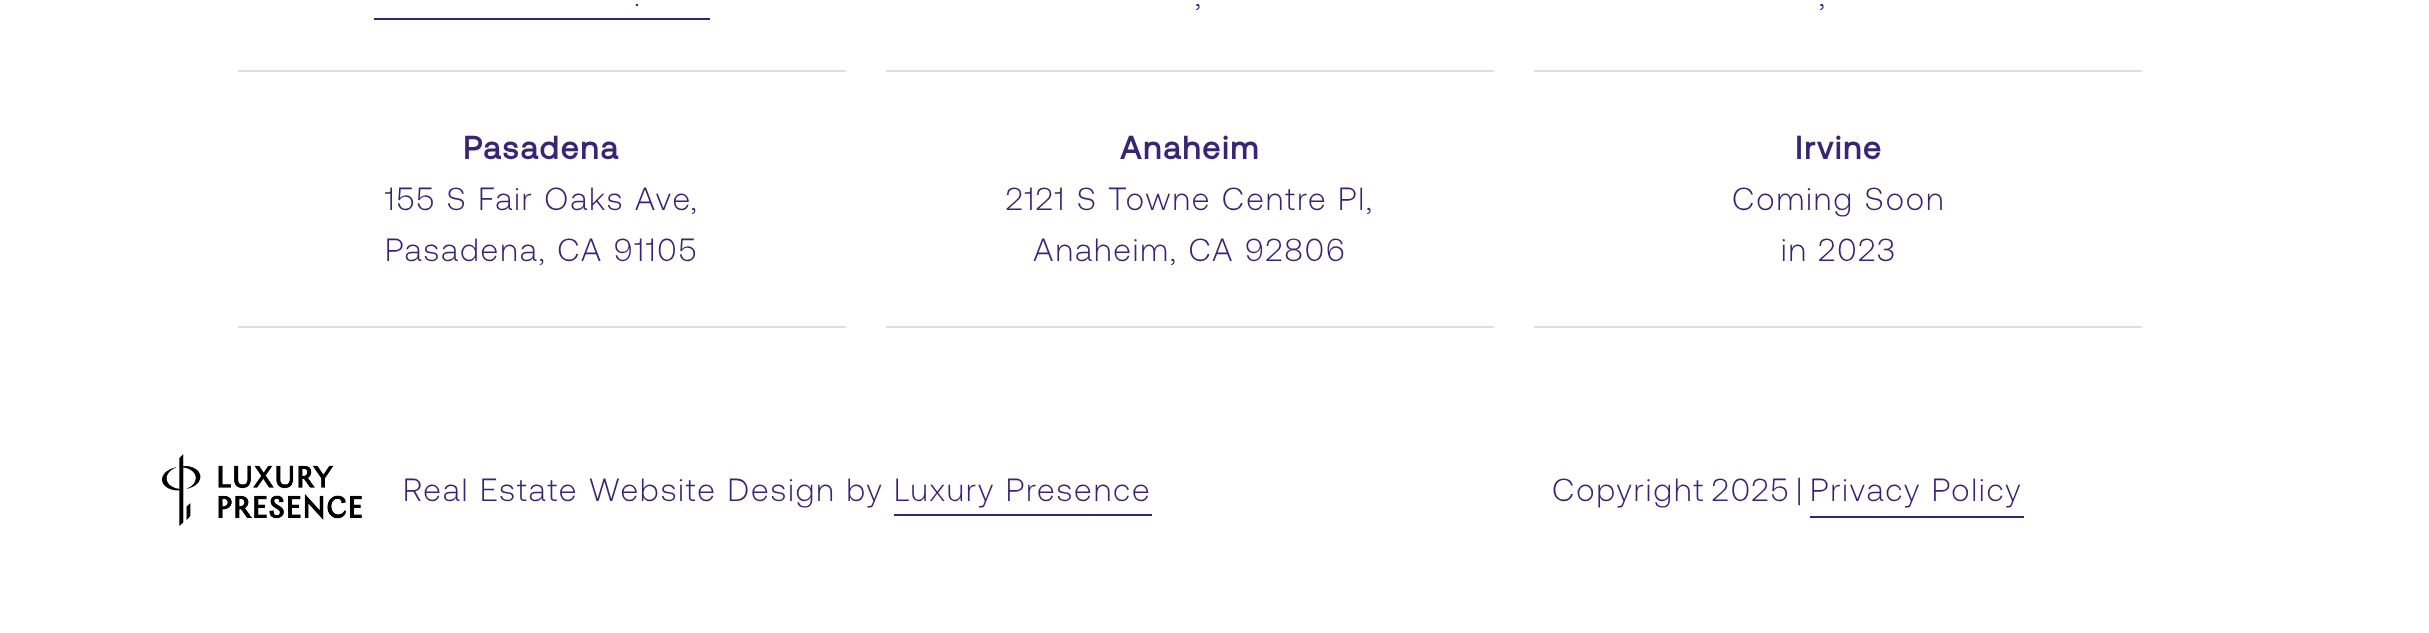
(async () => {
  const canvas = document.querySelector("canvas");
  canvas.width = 2429;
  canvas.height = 633;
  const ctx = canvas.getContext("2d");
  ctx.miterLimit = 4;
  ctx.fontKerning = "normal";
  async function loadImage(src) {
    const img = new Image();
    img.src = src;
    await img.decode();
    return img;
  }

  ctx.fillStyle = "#ffffff";
  ctx.fillRect(0, 0, 2429, 633);
  for (const [x, y, w, h, color] of [
    [238, 70, 608, 2, "#dddddd"],
    [374, 18, 336, 2, "#3f1f71"],
    [886, 70, 608, 2, "#dddddd"],
    [1534, 70, 608, 2, "#dddddd"],
    [238, 326, 608, 2, "#dddddd"],
    [886, 326, 608, 2, "#dddddd"],
    [1534, 326, 608, 2, "#dddddd"],
  ]) {
    ctx.fillStyle = color;
    ctx.fillRect(x, y, w, h);
  }
  ctx.drawImage(await loadImage("img/1.png"), 162, 454, 200, 72);
  ctx.fillStyle = "#3f1f71";
  ctx.fillRect(894, 514, 258, 2);
  ctx.fillRect(1810, 516, 214, 2);
  ctx.letterSpacing = "2px";
  ctx.font = "300 32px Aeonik";
  ctx.fillText(".", 634, 6);
  ctx.fillStyle = "#372675";
  ctx.fillText(",", 1195, 6);
  ctx.fillText(",", 1819, 6);
  ctx.font = "bold 32px Aeonik";
  ctx.fillText("Pasadena", 463, 159);
  ctx.font = "300 32px Aeonik";
  ctx.fillText("155 S Fair Oaks Ave,", 385, 210);
  ctx.fillText("Pasadena, CA 91105", 385, 261);
  ctx.font = "bold 32px Aeonik";
  ctx.fillText("Anaheim", 1120, 159);
  ctx.font = "300 32px Aeonik";
  ctx.fillText("2121 S Towne Centre Pl,", 1006, 210);
  ctx.fillText("Anaheim, CA 92806", 1033, 261);
  ctx.font = "bold 32px Aeonik";
  ctx.fillText("Irvine", 1795, 159);
  ctx.font = "300 32px Aeonik";
  for (const [text, x, y] of [
    ["Coming Soon", 1732, 210],
    ["in 2023", 1781, 261],
    ["Real Estate Website Design by", 403, 501],
  ]) {
    ctx.fillText(text, x, y);
  }
  ctx.fillStyle = "#3f1f71";
  ctx.fillText("Luxury Presence", 894, 501);
  ctx.fillStyle = "#372675";
  for (const [text, x, y] of [
    ["Copyright", 1552, 501],
    ["2025", 1712, 501],
    ["|", 1796, 501],
  ]) {
    ctx.fillText(text, x, y);
  }
  ctx.fillStyle = "#3f1f71";
  ctx.fillText("Privacy Policy", 1810, 501);
})();
